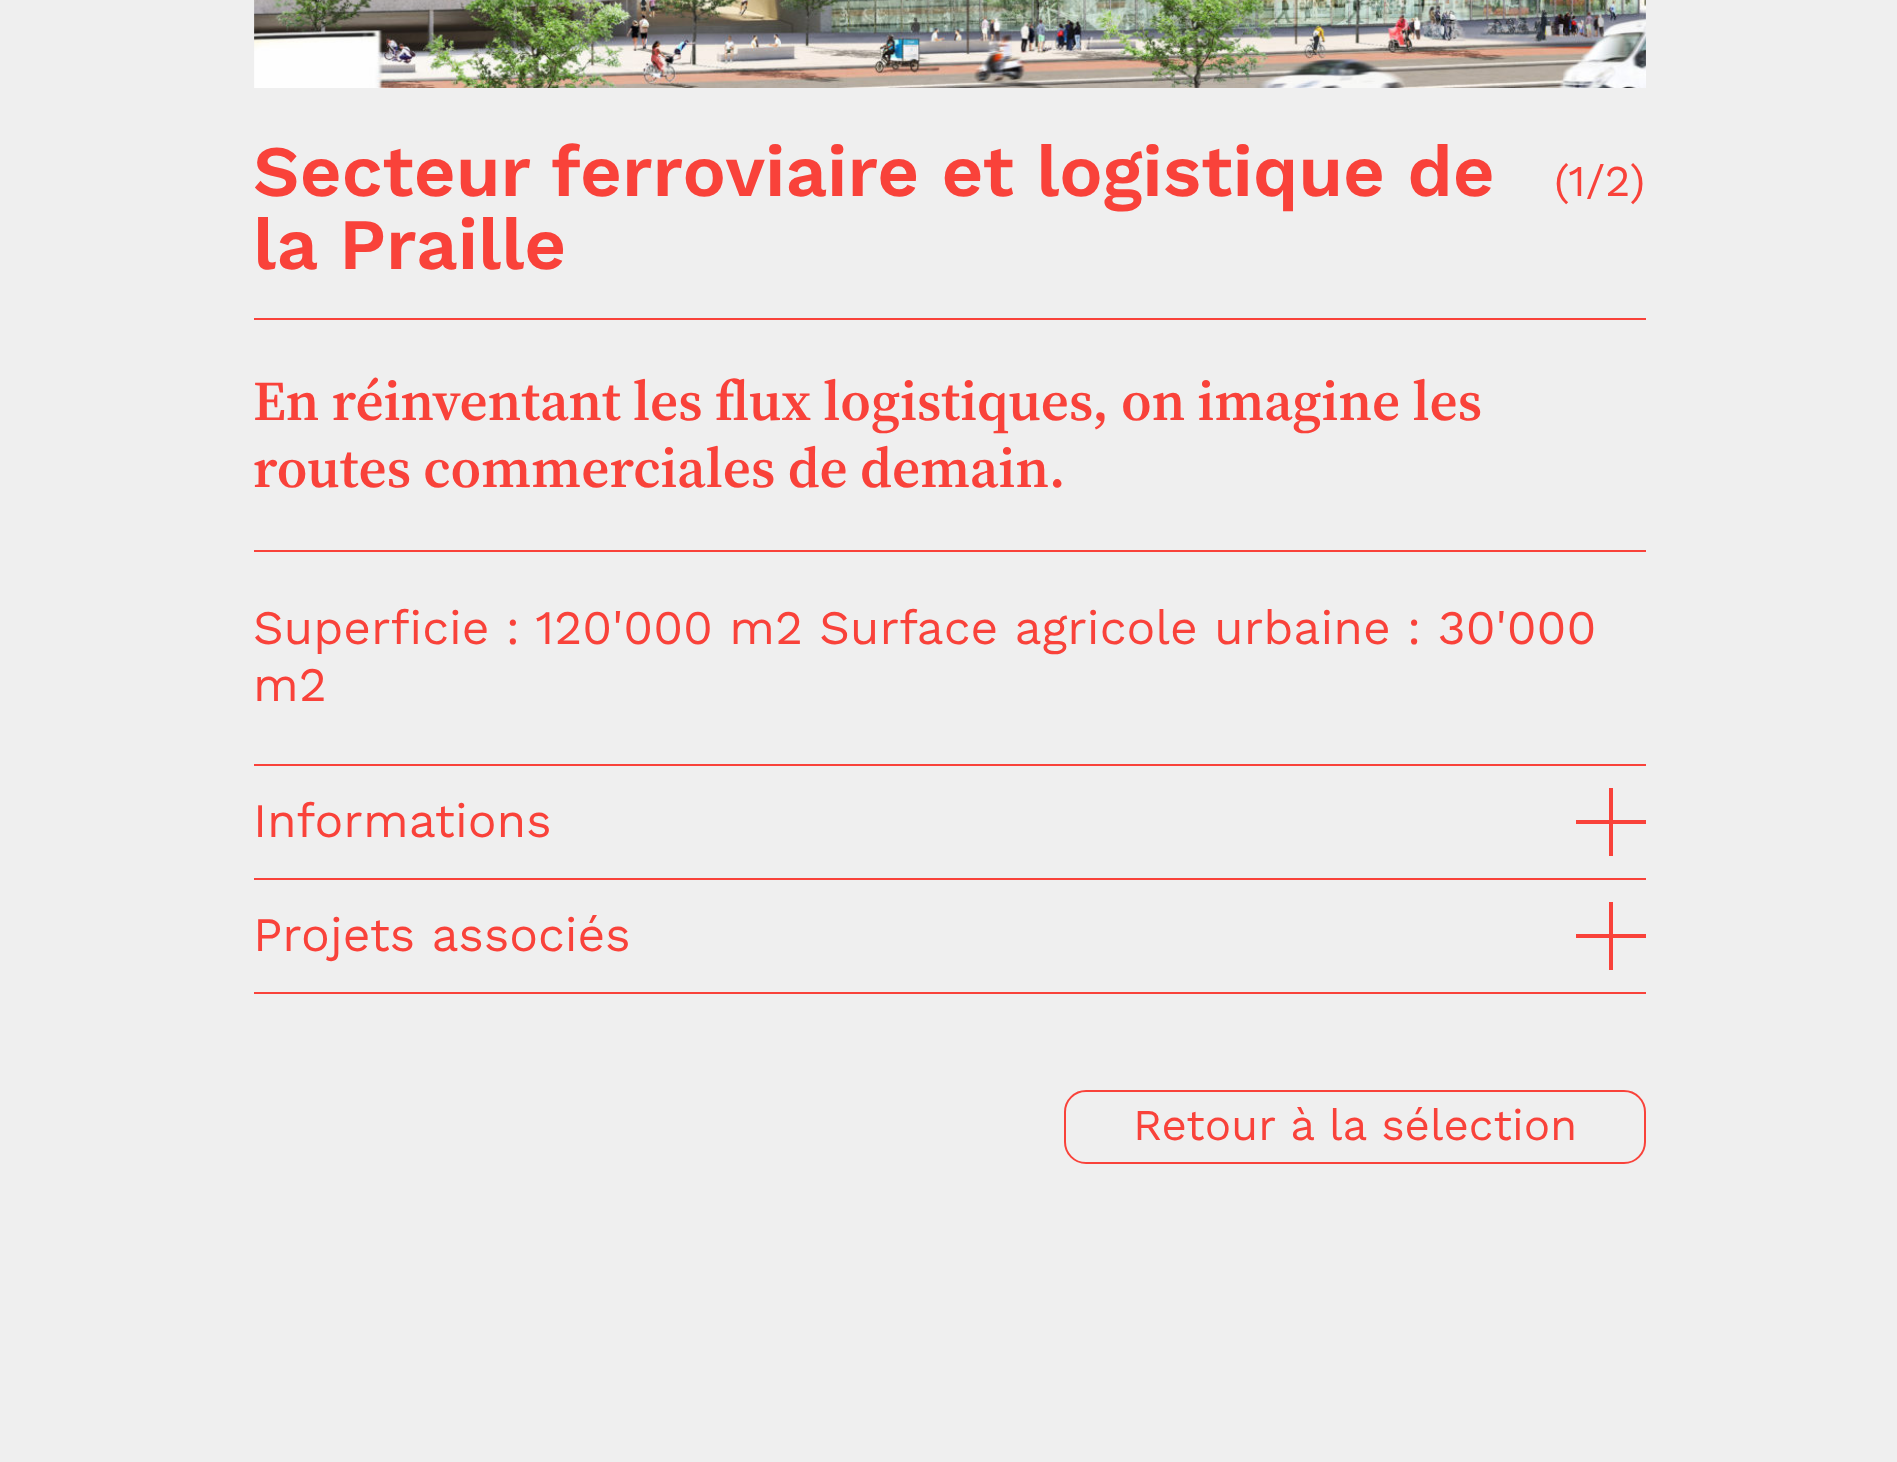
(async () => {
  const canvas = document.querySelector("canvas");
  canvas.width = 1897;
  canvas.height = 1462;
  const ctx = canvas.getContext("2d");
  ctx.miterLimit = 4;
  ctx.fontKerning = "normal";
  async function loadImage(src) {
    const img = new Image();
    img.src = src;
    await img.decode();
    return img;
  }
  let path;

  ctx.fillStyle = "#efefef";
  ctx.fillRect(0, 0, 1897, 1462);
  ctx.drawImage(await loadImage("img/1.png"), 254, 0, 1392, 88);
  for (const [x, y, w, h, color] of [
    [254, 318, 1392, 2, "#f9423a"],
    [254, 550, 1392, 2, "#f9423a"],
    [254, 764, 1392, 2, "#f9423a"],
    [254, 878, 1392, 2, "#f9423a"],
  ]) {
    ctx.fillStyle = color;
    ctx.fillRect(x, y, w, h);
  }
  ctx.save();
  ctx.beginPath();
  ctx.rect(1576, 788, 70, 68);
  ctx.clip();
  path = new Path2D("M1646 820H1613V787H1609V820H1576V824H1609V857H1613V824H1646Z");
  ctx.fill(path);
  ctx.restore();
  ctx.fillRect(254, 992, 1392, 2);
  ctx.save();
  ctx.beginPath();
  ctx.rect(1576, 902, 70, 68);
  ctx.clip();
  path = new Path2D("M1646 934H1613V901H1609V934H1576V938H1609V971H1613V938H1646Z");
  ctx.fill(path);
  ctx.restore();
  ctx.beginPath();
  ctx.roundRect(1065, 1091, 580, 72, 21);
  ctx.strokeStyle = "#f9423a";
  ctx.lineWidth = 2;
  ctx.stroke();
  ctx.font = "600 72.5px Work Sans";
  ctx.fillText("Secteur ferroviaire et logistique de", 253, 196);
  ctx.fillText("la Praille", 253, 269);
  ctx.font = "44px Work Sans";
  ctx.fillText("(1/2)", 1554, 196);
  ctx.font = "600 56px 'Source Serif 4'";
  ctx.fillText("En réinventant les flux logistiques, on imagine les", 253, 420);
  ctx.fillText("routes commerciales de demain.", 253, 487);
  ctx.font = "48px Work Sans";
  for (const [text, x, y] of [
    ["Superficie : 120'000 m2 Surface agricole urbaine : 30'000", 253, 644],
    ["m2", 253, 701],
    ["Informations", 253, 837],
    ["Projets associés", 253, 951],
  ]) {
    ctx.fillText(text, x, y);
  }
  ctx.font = "44px Work Sans";
  ctx.fillText("Retour à la sélection", 1133, 1140);
})();
